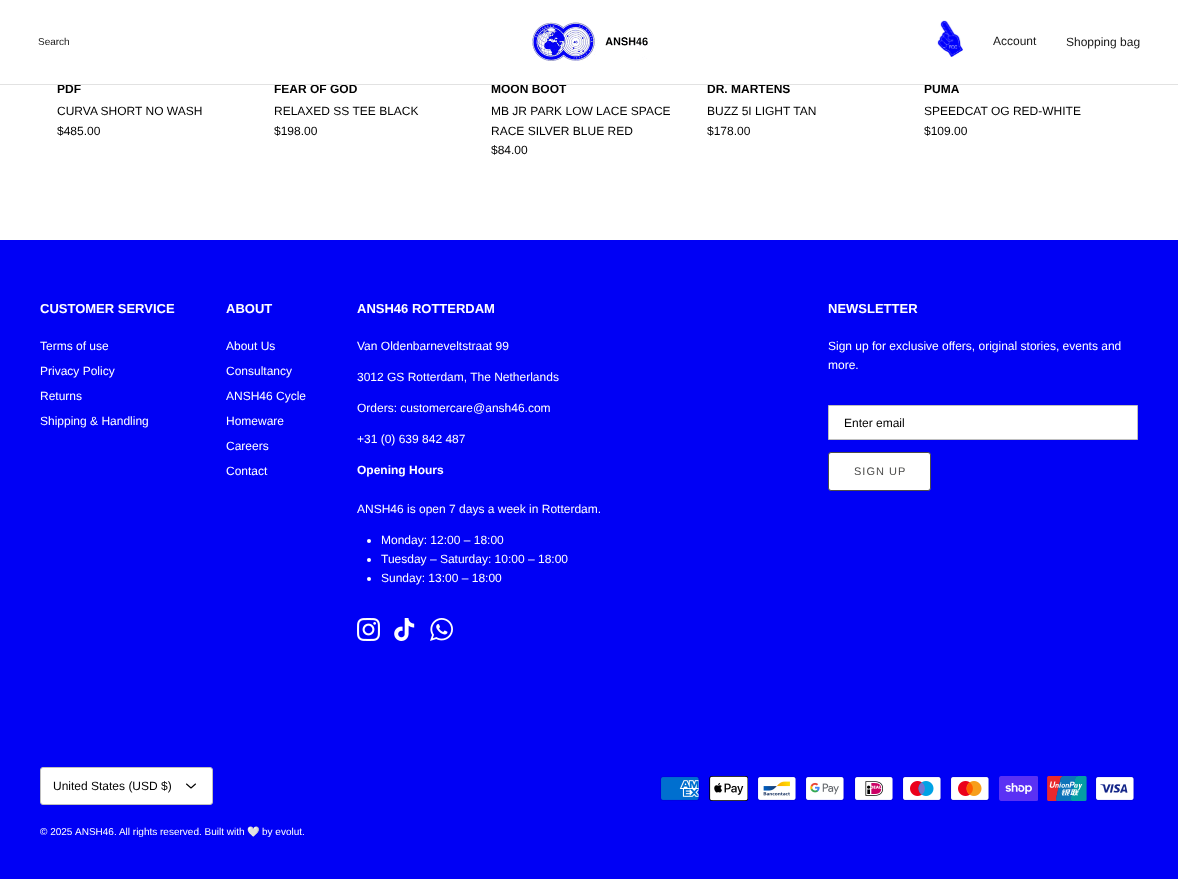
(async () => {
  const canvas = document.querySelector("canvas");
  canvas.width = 1178;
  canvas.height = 879;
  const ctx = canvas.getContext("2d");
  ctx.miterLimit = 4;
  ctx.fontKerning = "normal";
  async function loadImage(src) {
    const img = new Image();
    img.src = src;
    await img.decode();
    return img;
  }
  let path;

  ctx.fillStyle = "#ffffff";
  ctx.fillRect(0, 0, 1178, 879);
  ctx.drawImage(await loadImage("img/1.png"), 532, 22, 116, 39);
  ctx.drawImage(await loadImage("img/2.png"), 937, 20, 26, 37);
  ctx.fillStyle = "#0000f5";
  ctx.fillRect(0, 240, 1178, 639);
  ctx.fillStyle = "#ffffff";
  ctx.beginPath();
  ctx.arc(369, 541, 2, 0, Math.PI * 2);
  ctx.fill();
  ctx.beginPath();
  ctx.arc(369, 560, 2, 0, Math.PI * 2);
  ctx.fill();
  ctx.beginPath();
  ctx.arc(369, 579, 2, 0, Math.PI * 2);
  ctx.fill();
  ctx.drawImage(await loadImage("img/3.png"), 357, 618, 23, 23);
  ctx.drawImage(await loadImage("img/4.png"), 394, 618, 21, 23);
  ctx.drawImage(await loadImage("img/5.png"), 430, 618, 23, 23);
  ctx.beginPath();
  ctx.rect(828.5, 405.5, 309, 34);
  ctx.fill();
  ctx.strokeStyle = "#bfbfbf";
  ctx.stroke();
  ctx.beginPath();
  ctx.roundRect(828.5, 452.5, 102, 38, 2.5);
  ctx.fill();
  ctx.strokeStyle = "#4c4c4b";
  ctx.stroke();
  ctx.beginPath();
  ctx.roundRect(40.5, 767.5, 172, 37, 2.5);
  ctx.fill();
  ctx.strokeStyle = "#bfbfbf";
  ctx.stroke();
  path = new Path2D("M186.5 784L191 788L195.5 784");
  ctx.strokeStyle = "#000000";
  ctx.lineWidth = 1.1;
  ctx.lineCap = "round";
  ctx.lineJoin = "round";
  ctx.stroke(path);
  ctx.drawImage(await loadImage("img/6.png"), 660, 776, 40, 25);
  ctx.drawImage(await loadImage("img/7.png"), 709, 776, 39, 25);
  ctx.drawImage(await loadImage("img/8.png"), 757, 776, 39, 25);
  ctx.drawImage(await loadImage("img/9.png"), 805, 776, 40, 25);
  ctx.drawImage(await loadImage("img/10.png"), 854, 776, 39, 25);
  ctx.drawImage(await loadImage("img/11.png"), 902, 776, 40, 25);
  ctx.drawImage(await loadImage("img/12.png"), 950, 776, 40, 25);
  ctx.drawImage(await loadImage("img/13.png"), 999, 776, 39, 25);
  ctx.drawImage(await loadImage("img/14.png"), 1047, 776, 40, 25);
  ctx.drawImage(await loadImage("img/15.png"), 1095, 776, 40, 25);
  ctx.font = "10px Liberation Sans";
  ctx.fillStyle = "#171717";
  ctx.fillText("Search", 38, 45);
  ctx.font = "12px Liberation Sans";
  ctx.fillText("Account", 993, 45);
  ctx.fillText("Shopping bag", 1066, 46);
  ctx.font = "bold 12px Liberation Sans";
  ctx.fillStyle = "#000000";
  ctx.fillText("PDF", 57, 93);
  ctx.font = "12px Liberation Sans";
  ctx.fillText("CURVA SHORT NO WASH", 57, 115);
  ctx.fillText("$485.00", 57, 135);
  ctx.font = "bold 12px Liberation Sans";
  ctx.fillText("FEAR OF GOD", 274, 93);
  ctx.font = "12px Liberation Sans";
  ctx.fillText("RELAXED SS TEE BLACK", 274, 115);
  ctx.fillText("$198.00", 274, 135);
  ctx.font = "bold 12px Liberation Sans";
  ctx.fillText("MOON BOOT", 491, 93);
  ctx.font = "12px Liberation Sans";
  for (const [text, x, y] of [
    ["MB JR PARK LOW LACE SPACE", 491, 115],
    ["RACE SILVER BLUE RED", 491, 135],
    ["$84.00", 491, 154],
  ]) {
    ctx.fillText(text, x, y);
  }
  ctx.font = "bold 12px Liberation Sans";
  ctx.fillText("DR. MARTENS", 707, 93);
  ctx.font = "12px Liberation Sans";
  ctx.fillText("BUZZ 5I LIGHT TAN", 707, 115);
  ctx.fillText("$178.00", 707, 135);
  ctx.font = "bold 12px Liberation Sans";
  ctx.fillText("PUMA", 924, 93);
  ctx.fillStyle = "#e2e2e2";
  ctx.fillRect(0, 84, 1178, 1);
  ctx.font = "12px Liberation Sans";
  ctx.fillStyle = "#000000";
  ctx.fillText("SPEEDCAT OG RED-WHITE", 924, 115);
  ctx.fillText("$109.00", 924, 135);
  ctx.font = "bold 13px Liberation Sans";
  ctx.fillStyle = "#ffffff";
  ctx.fillText("CUSTOMER SERVICE", 40, 313);
  ctx.font = "12px Liberation Sans";
  for (const [text, x, y] of [
    ["Terms of use", 40, 350],
    ["Privacy Policy", 40, 375],
    ["Returns", 40, 400],
    ["Shipping & Handling", 40, 425],
  ]) {
    ctx.fillText(text, x, y);
  }
  ctx.font = "bold 13px Liberation Sans";
  ctx.fillText("ABOUT", 226, 313);
  ctx.font = "12px Liberation Sans";
  for (const [text, x, y] of [
    ["About Us", 226, 350],
    ["Consultancy", 226, 375],
    ["ANSH46 Cycle", 226, 400],
    ["Homeware", 226, 425],
    ["Careers", 226, 450],
    ["Contact", 226, 475],
  ]) {
    ctx.fillText(text, x, y);
  }
  ctx.font = "bold 13px Liberation Sans";
  ctx.fillText("ANSH46 ROTTERDAM", 357, 313);
  ctx.font = "12px Liberation Sans";
  for (const [text, x, y] of [
    ["Van Oldenbarneveltstraat 99", 357, 350],
    ["3012 GS Rotterdam, The Netherlands", 357, 381],
    ["Orders: customercare@ansh46.com", 357, 412],
    ["+31 (0) 639 842 487", 357, 443],
  ]) {
    ctx.fillText(text, x, y);
  }
  ctx.font = "bold 12px Liberation Sans";
  ctx.fillText("Opening Hours", 357, 474);
  ctx.font = "12px Liberation Sans";
  for (const [text, x, y] of [
    ["ANSH46 is open 7 days a week in Rotterdam.", 357, 513],
    ["Monday: 12:00 – 18:00", 381, 544],
    ["Tuesday – Saturday: 10:00 – 18:00", 381, 563],
    ["Sunday: 13:00 – 18:00", 381, 582],
  ]) {
    ctx.fillText(text, x, y);
  }
  ctx.font = "bold 13px Liberation Sans";
  ctx.fillText("NEWSLETTER", 828, 313);
  ctx.font = "12px Liberation Sans";
  ctx.fillText("Sign up for exclusive offers, original stories, events and", 828, 350);
  ctx.fillText("more.", 828, 369);
  ctx.fillStyle = "#000000";
  ctx.fillText("Enter email", 844, 427);
  ctx.letterSpacing = "1px";
  ctx.font = "11px Liberation Sans";
  ctx.fillStyle = "#4c4c4b";
  ctx.fillText("SIGN UP", 854, 475);
  ctx.letterSpacing = "0px";
  ctx.font = "12px Liberation Sans";
  ctx.fillStyle = "#000000";
  ctx.fillText("United States (USD $)", 53, 790);
  ctx.font = "10px Liberation Sans";
  ctx.fillStyle = "#ffffff";
  ctx.fillText("© 2025", 40, 835);
  ctx.fillText("ANSH46. All rights reserved. Built with", 75, 835);
  ctx.font = "10px Noto Color Emoji";
  ctx.fillText("🤍", 247, 835);
  ctx.font = "10px Liberation Sans";
  ctx.fillText("by evolut.", 262, 835);
})();
